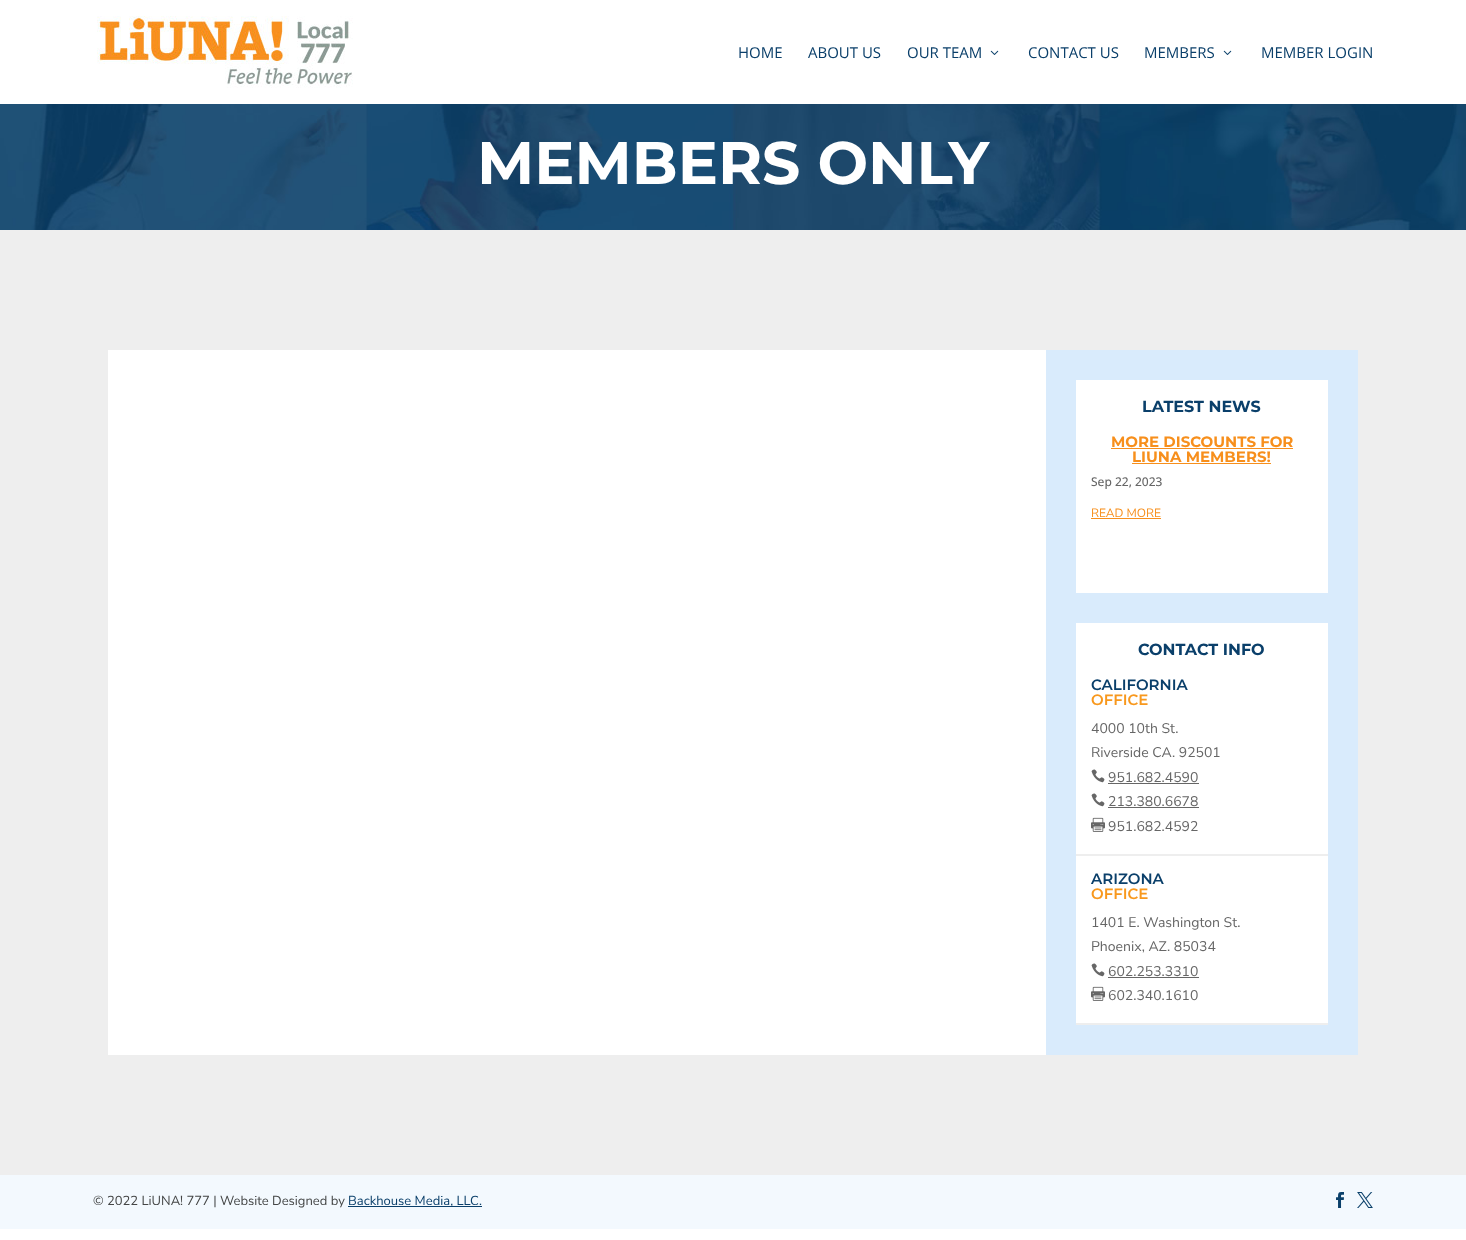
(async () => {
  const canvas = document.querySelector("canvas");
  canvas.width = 1466;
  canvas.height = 1240;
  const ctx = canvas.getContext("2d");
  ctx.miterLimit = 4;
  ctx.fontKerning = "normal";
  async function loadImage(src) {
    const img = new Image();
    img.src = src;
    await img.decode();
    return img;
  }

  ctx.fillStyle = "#ffffff";
  ctx.fillRect(0, 0, 1466, 1240);
  ctx.drawImage(await loadImage("img/1.png"), 97, 16, 256, 72);
  ctx.drawImage(await loadImage("img/2.png"), 990, 50, 9, 5);
  ctx.drawImage(await loadImage("img/2.png"), 1223, 50, 9, 5);
  ctx.drawImage(await loadImage("img/3.png"), 0, 104, 1466, 126);
  for (const [x, y, w, h, color] of [
    [0, 230, 1466, 945, "#eeeeee"],
    [108, 350, 938, 705, "#ffffff"],
    [1046, 350, 312, 705, "#d9ebfc"],
    [1076, 380, 252, 213, "#ffffff"],
    [1111, 448, 182, 1, "#f78f1c"],
    [1132, 463, 139, 1, "#f78f1c"],
    [1091, 518, 70, 1, "#f78f1c"],
    [1076, 623, 252, 231, "#ffffff"],
    [1076, 854, 252, 2, "#eeeeee"],
  ]) {
    ctx.fillStyle = color;
    ctx.fillRect(x, y, w, h);
  }
  ctx.drawImage(await loadImage("img/4.png"), 1091, 769, 14, 14);
  ctx.fillStyle = "#666666";
  ctx.fillRect(1108, 783, 91, 1);
  ctx.drawImage(await loadImage("img/4.png"), 1091, 793, 14, 14);
  ctx.fillRect(1108, 807, 91, 1);
  ctx.drawImage(await loadImage("img/5.png"), 1091, 817, 14, 15);
  ctx.fillStyle = "#ffffff";
  ctx.fillRect(1076, 856, 252, 167);
  ctx.fillStyle = "#eeeeee";
  ctx.fillRect(1076, 1023, 252, 2);
  ctx.drawImage(await loadImage("img/4.png"), 1091, 963, 14, 14);
  ctx.fillStyle = "#666666";
  ctx.fillRect(1108, 977, 91, 1);
  ctx.drawImage(await loadImage("img/5.png"), 1091, 986, 14, 15);
  ctx.fillStyle = "#f3f9fe";
  ctx.fillRect(0, 1175, 1466, 54);
  ctx.fillStyle = "#0a3f6a";
  ctx.fillRect(348, 1206, 134, 1);
  ctx.drawImage(await loadImage("img/6.png"), 1336, 1192, 8, 16);
  ctx.drawImage(await loadImage("img/7.png"), 1357, 1192, 16, 16);
  ctx.font = "15px Open Sans";
  for (const [text, x, y] of [
    ["HOME", 738, 58],
    ["ABOUT US", 808, 58],
    ["OUR TEAM", 907, 58],
    ["CONTACT US", 1028, 58],
    ["MEMBERS", 1144, 58],
    ["MEMBER LOGIN", 1261, 58],
  ]) {
    ctx.fillText(text, x, y);
  }
  ctx.font = "100 60px Montserrat";
  ctx.fillStyle = "#ffffff";
  ctx.fillText("MEMBERS ONLY", 477, 184);
  ctx.font = "100 16px Montserrat";
  ctx.fillStyle = "#0a3f6a";
  ctx.fillText("LATEST NEWS", 1142, 412);
  ctx.font = "100 15px Montserrat";
  ctx.fillStyle = "#f78f1c";
  ctx.fillText("MORE DISCOUNTS FOR", 1111, 447);
  ctx.fillText("LIUNA MEMBERS!", 1132, 462);
  ctx.font = "500 12px Open Sans";
  ctx.fillStyle = "#666666";
  ctx.fillText("Sep 22, 2023", 1091, 486);
  ctx.font = "200 12px Nunito Sans";
  ctx.fillStyle = "#f78f1c";
  ctx.fillText("READ MORE", 1091, 517);
  ctx.font = "100 16px Montserrat";
  ctx.fillStyle = "#0a3f6a";
  ctx.fillText("CONTACT INFO", 1138, 655);
  ctx.font = "100 15px 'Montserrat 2'";
  ctx.fillText("CALIFORNIA", 1091, 690);
  ctx.fillStyle = "#f8981d";
  ctx.fillText("OFFICE", 1091, 705);
  ctx.font = "200 14px Nunito Sans";
  ctx.fillStyle = "#666666";
  for (const [text, x, y] of [
    ["4000 10th St.", 1091, 733],
    ["Riverside CA. 92501", 1091, 757],
    ["951.682.4590", 1108, 782],
    ["213.380.6678", 1108, 806],
    ["951.682.4592", 1108, 831],
  ]) {
    ctx.fillText(text, x, y);
  }
  ctx.font = "100 15px 'Montserrat 2'";
  ctx.fillStyle = "#0a3f6a";
  ctx.fillText("ARIZONA", 1091, 884);
  ctx.fillStyle = "#f8981d";
  ctx.fillText("OFFICE", 1091, 899);
  ctx.font = "200 14px Nunito Sans";
  ctx.fillStyle = "#666666";
  for (const [text, x, y] of [
    ["1401 E. Washington St.", 1091, 927],
    ["Phoenix, AZ. 85034", 1091, 951],
    ["602.253.3310", 1108, 976],
    ["602.340.1610", 1108, 1000],
  ]) {
    ctx.fillText(text, x, y);
  }
  ctx.font = "200 13px Nunito Sans";
  ctx.fillStyle = "#444646";
  ctx.fillText("© 2022 LiUNA! 777 | Website Designed by", 93, 1205);
  ctx.fillStyle = "#0a3f6a";
  ctx.fillText("Backhouse Media, LLC.", 348, 1205);
})();
